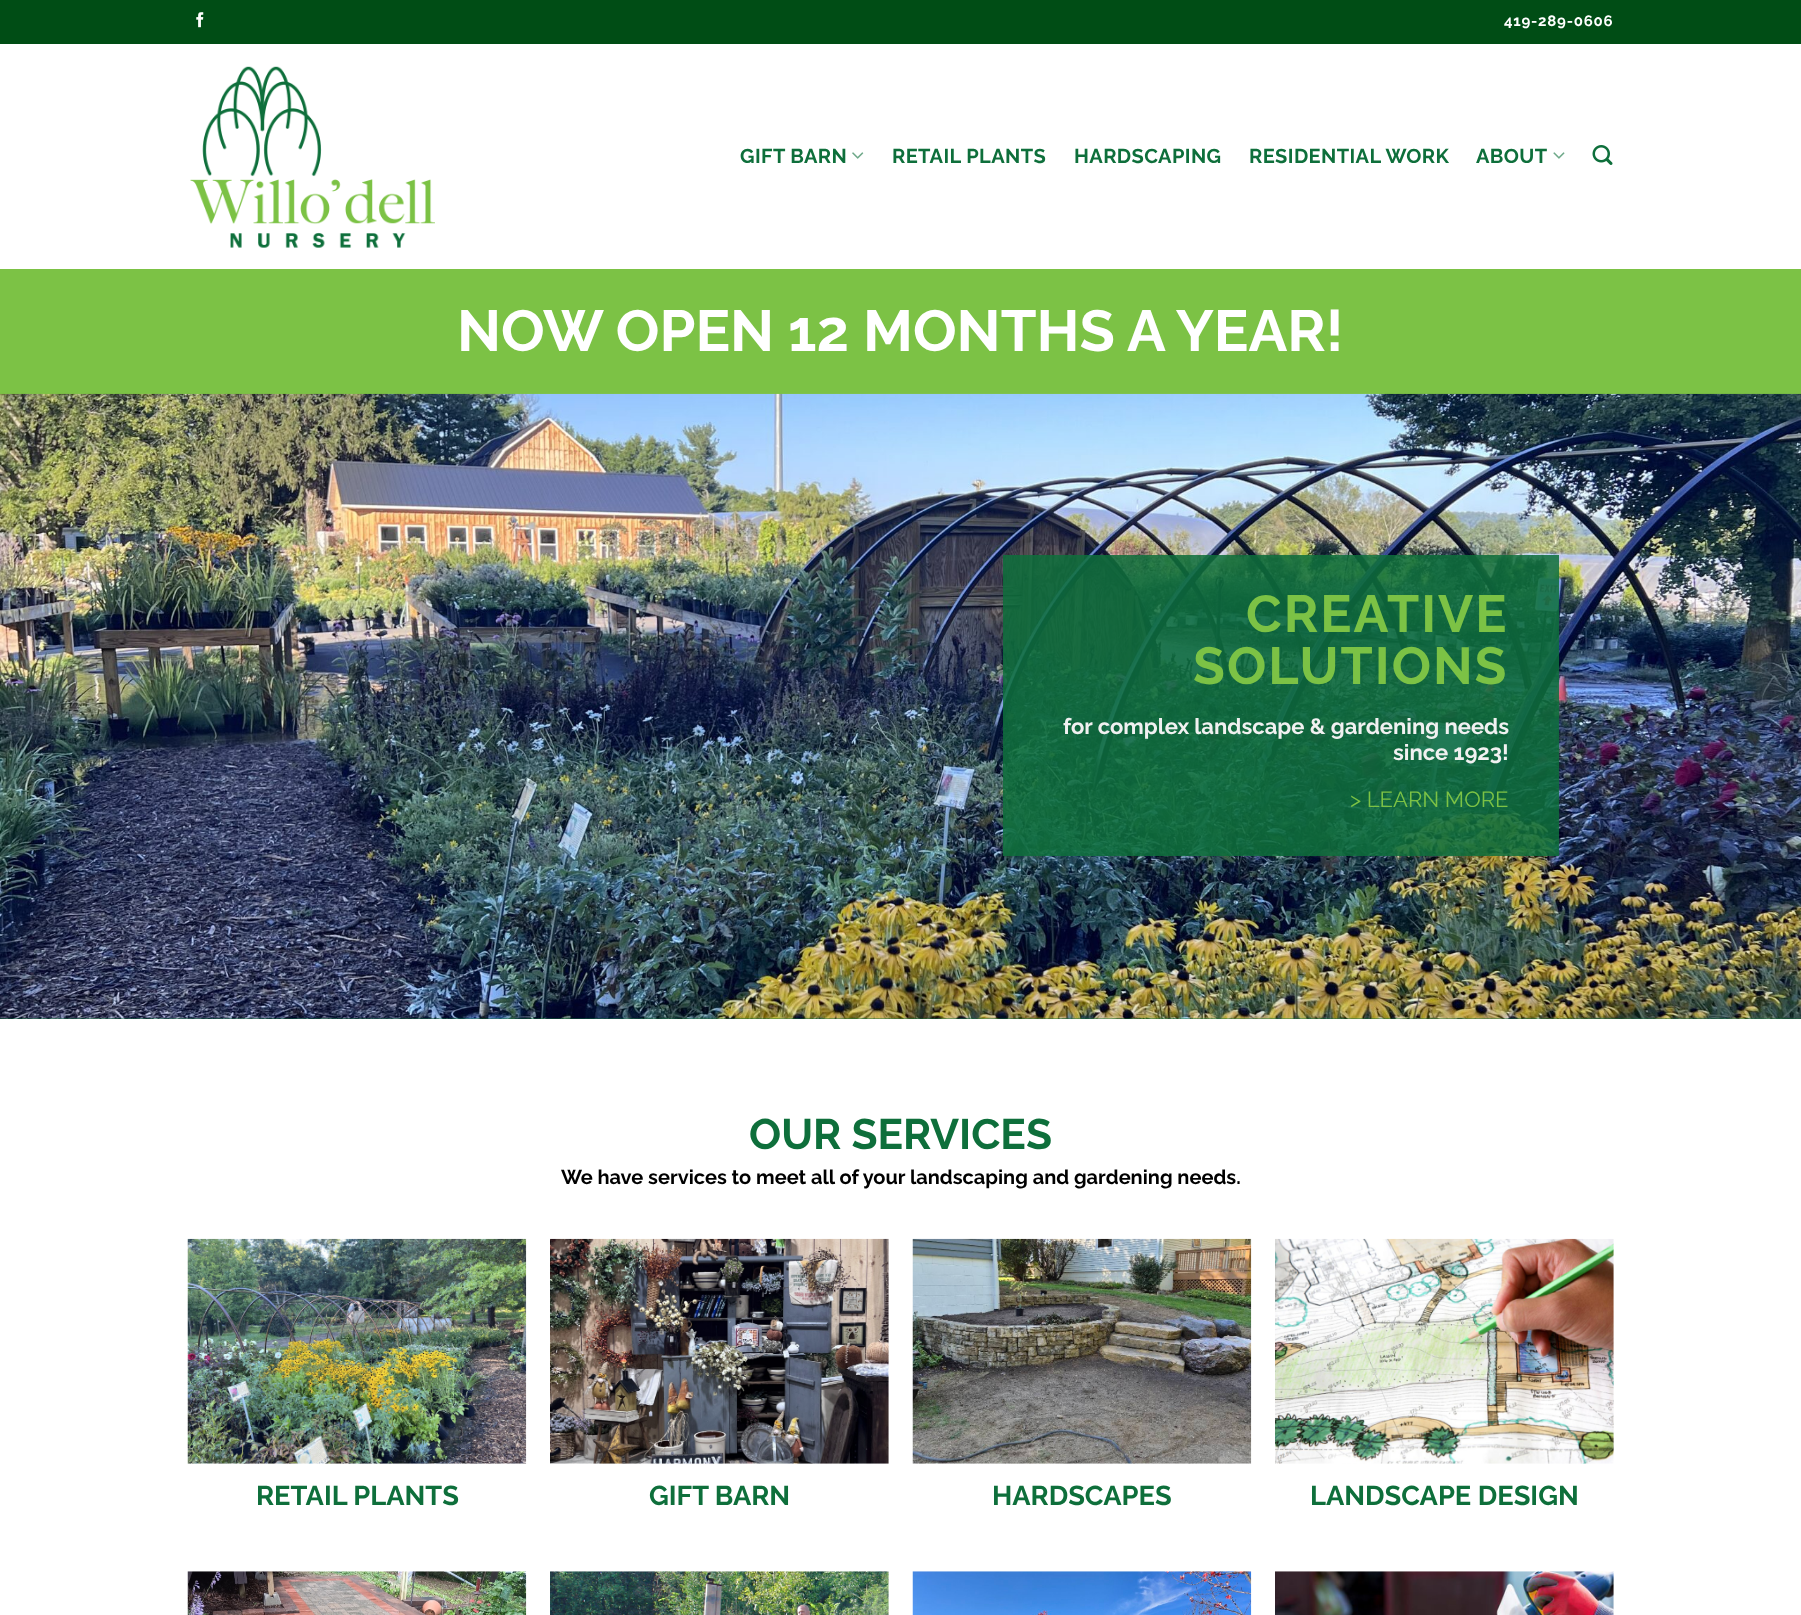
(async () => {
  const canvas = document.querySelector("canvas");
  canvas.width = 1801;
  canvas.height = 1615;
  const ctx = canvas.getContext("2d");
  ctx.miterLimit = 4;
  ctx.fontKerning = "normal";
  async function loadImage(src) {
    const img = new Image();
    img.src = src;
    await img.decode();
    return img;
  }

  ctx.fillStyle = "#ffffff";
  ctx.fillRect(0, 0, 1801, 1615);
  ctx.fillStyle = "#004d15";
  ctx.fillRect(0, 0, 1801, 44);
  ctx.drawImage(await loadImage("img/1.png"), 196, 12, 8, 16);
  ctx.drawImage(await loadImage("img/2.png"), 190, 66, 245, 182);
  ctx.drawImage(await loadImage("img/3.png"), 852, 152, 12, 7);
  ctx.drawImage(await loadImage("img/4.png"), 1553, 152, 12, 7);
  ctx.drawImage(await loadImage("img/5.png"), 1592, 145, 21, 20);
  ctx.fillStyle = "#7cc245";
  ctx.fillRect(0, 269, 1801, 125);
  ctx.fillStyle = "#0e6f3b";
  ctx.fillRect(0, 1018, 1801, 1);
  ctx.drawImage(await loadImage("img/6.png"), 0, 393, 1801, 626);
  ctx.fillStyle = "rgba(14, 111, 59, 0.86)";
  ctx.fillRect(1003, 555, 556, 301);
  ctx.drawImage(await loadImage("img/7.png"), 187, 1238, 340, 226);
  ctx.drawImage(await loadImage("img/8.png"), 550, 1238, 339, 226);
  ctx.drawImage(await loadImage("img/9.png"), 912, 1238, 340, 226);
  ctx.drawImage(await loadImage("img/10.png"), 1275, 1238, 339, 226);
  ctx.drawImage(await loadImage("img/11.png"), 187, 1571, 340, 44);
  ctx.drawImage(await loadImage("img/12.png"), 550, 1571, 339, 44);
  ctx.drawImage(await loadImage("img/13.png"), 912, 1571, 340, 44);
  ctx.drawImage(await loadImage("img/14.png"), 1275, 1571, 339, 44);
  ctx.letterSpacing = "0.75px";
  ctx.font = "bold 15px Raleway";
  ctx.fillStyle = "#ffffff";
  ctx.fillText("419-289-0606", 1504, 26);
  ctx.letterSpacing = "0.4px";
  ctx.font = "bold 20px Raleway";
  ctx.fillStyle = "#0e6f3b";
  for (const [text, x, y] of [
    ["GIFT BARN", 740, 163],
    ["RETAIL PLANTS", 892, 163],
    ["HARDSCAPING", 1074, 163],
    ["RESIDENTIAL WORK", 1249, 163],
    ["ABOUT", 1476, 163],
  ]) {
    ctx.fillText(text, x, y);
  }
  ctx.letterSpacing = "0px";
  ctx.font = "bold 57.75px Raleway";
  ctx.fillStyle = "#ffffff";
  ctx.fillText("NOW OPEN 12 MONTHS A YEAR!", 457, 351);
  ctx.letterSpacing = "2px";
  ctx.font = "bold 52px Raleway";
  ctx.fillStyle = "#7cc245";
  ctx.fillText("CREATIVE", 1246, 632);
  ctx.fillText("SOLUTIONS", 1193, 684);
  ctx.letterSpacing = "0px";
  ctx.font = "bold 22px Raleway";
  ctx.fillStyle = "#f1f1f1";
  ctx.fillText("for complex landscape & gardening needs", 1063, 734);
  ctx.fillText("since 1923!", 1393, 760);
  ctx.font = "22px Raleway";
  ctx.fillStyle = "#7cc245";
  ctx.fillText("> LEARN MORE", 1350, 807);
  ctx.font = "bold 42.5px Raleway";
  ctx.fillStyle = "#0e6f3b";
  ctx.fillText("OUR SERVICES", 749, 1149);
  ctx.font = "bold 20px Raleway";
  ctx.fillStyle = "#000000";
  ctx.fillText("We have services to meet all of your landscaping and gardening needs.", 561, 1184);
  ctx.font = "bold 27.25px Raleway";
  ctx.fillStyle = "#0e6f3b";
  for (const [text, x, y] of [
    ["RETAIL PLANTS", 256, 1505],
    ["GIFT BARN", 649, 1505],
    ["HARDSCAPES", 992, 1505],
    ["LANDSCAPE DESIGN", 1310, 1505],
  ]) {
    ctx.fillText(text, x, y);
  }
})();
